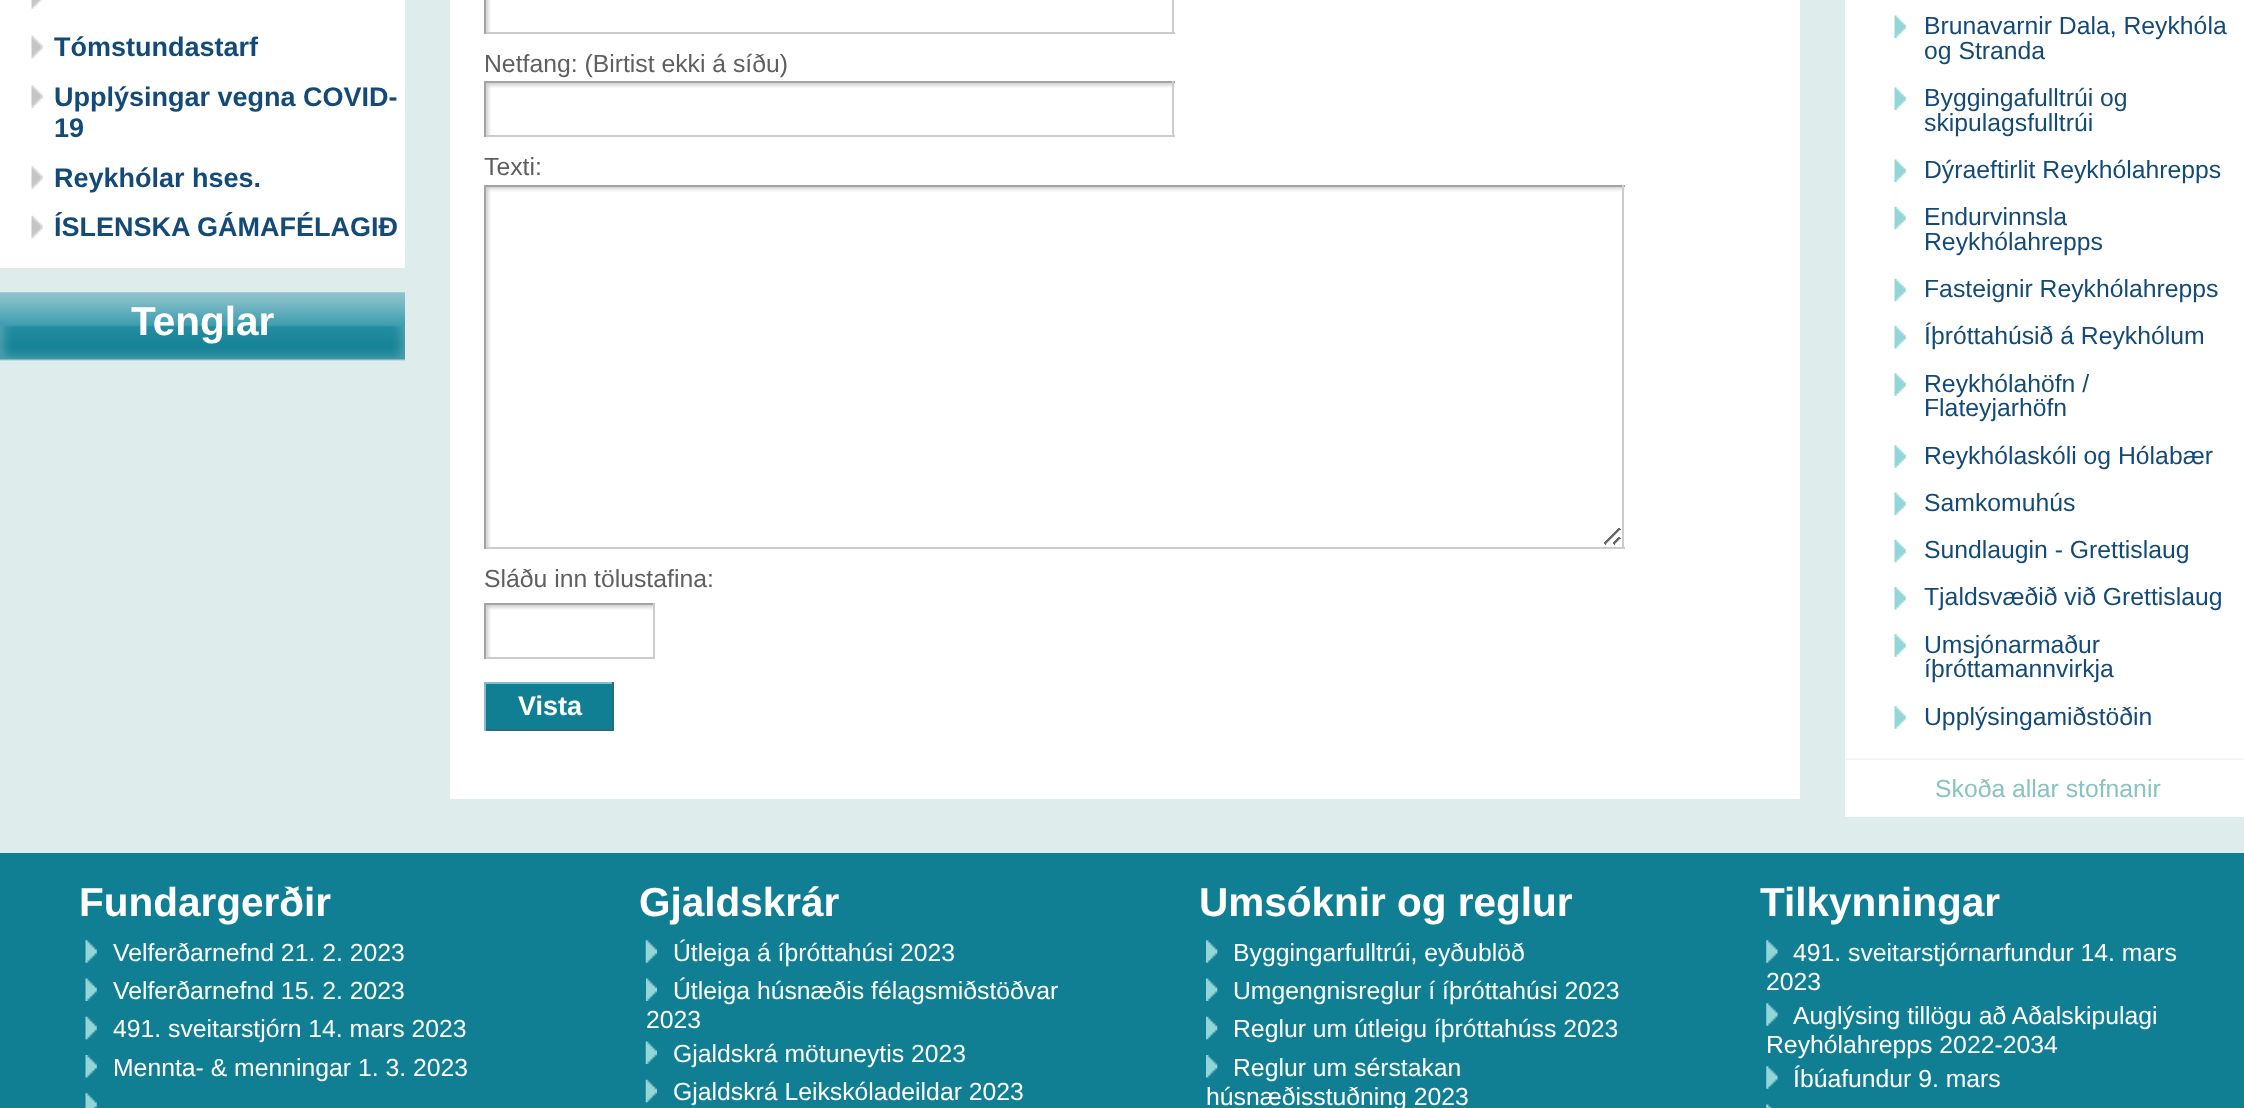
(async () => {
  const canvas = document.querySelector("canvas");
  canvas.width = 2244;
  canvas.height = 1108;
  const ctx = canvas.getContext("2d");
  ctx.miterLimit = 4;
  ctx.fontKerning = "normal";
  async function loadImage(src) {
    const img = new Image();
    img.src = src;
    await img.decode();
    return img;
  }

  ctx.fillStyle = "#deecec";
  ctx.fillRect(0, 0, 2244, 1108);
  ctx.fillStyle = "#ffffff";
  ctx.fillRect(0, 0, 405, 268);
  ctx.drawImage(await loadImage("img/1.png"), 31, 0, 12, 9);
  ctx.drawImage(await loadImage("img/2.png"), 31, 35, 12, 24);
  ctx.drawImage(await loadImage("img/3.png"), 31, 85, 12, 23);
  ctx.drawImage(await loadImage("img/3.png"), 31, 166, 12, 23);
  ctx.drawImage(await loadImage("img/2.png"), 31, 215, 12, 24);
  ctx.drawImage(await loadImage("img/4.png"), 0, 292, 405, 70);
  ctx.fillRect(450, 0, 1350, 799);
  ctx.drawImage(await loadImage("img/5.png"), 486, 0, 5, 32);
  for (const [x, y, w, h, color] of [
    [1172, 0, 2, 34, "#cccccc"],
    [484, 32, 691, 2, "#cccccc"],
    [484, 0, 2, 34, "#a3a3a3"],
  ]) {
    ctx.fillStyle = color;
    ctx.fillRect(x, y, w, h);
  }
  ctx.drawImage(await loadImage("img/6.png"), 486, 83, 689, 52);
  for (const [x, y, w, h, color] of [
    [484, 81, 691, 2, "#a3a3a3"],
    [1172, 81, 2, 56, "#cccccc"],
    [484, 135, 691, 2, "#cccccc"],
    [484, 81, 2, 56, "#a3a3a3"],
  ]) {
    ctx.fillStyle = color;
    ctx.fillRect(x, y, w, h);
  }
  ctx.drawImage(await loadImage("img/7.png"), 486, 187, 1139, 360);
  for (const [x, y, w, h, color] of [
    [484, 185, 1141, 2, "#a3a3a3"],
    [1622, 185, 2, 364, "#cccccc"],
    [484, 547, 1141, 2, "#cccccc"],
    [484, 185, 2, 364, "#a3a3a3"],
  ]) {
    ctx.fillStyle = color;
    ctx.fillRect(x, y, w, h);
  }
  ctx.drawImage(await loadImage("img/8.png"), 486, 605, 167, 52);
  for (const [x, y, w, h, color] of [
    [484, 603, 171, 2, "#a3a3a3"],
    [653, 603, 2, 56, "#cccccc"],
    [484, 657, 171, 2, "#cccccc"],
    [484, 603, 2, 56, "#a3a3a3"],
    [486, 684, 126, 45, "#117f93"],
    [484, 682, 130, 2, "#80c0cc"],
    [612, 682, 2, 49, "#296d7a"],
    [484, 729, 130, 2, "#296d7a"],
    [484, 682, 2, 49, "#80c0cc"],
    [1845, 0, 399, 817, "#ffffff"],
  ]) {
    ctx.fillStyle = color;
    ctx.fillRect(x, y, w, h);
  }
  ctx.drawImage(await loadImage("img/9.png"), 1894, 15, 12, 23);
  ctx.drawImage(await loadImage("img/9.png"), 1894, 87, 12, 23);
  ctx.drawImage(await loadImage("img/9.png"), 1894, 159, 12, 23);
  ctx.drawImage(await loadImage("img/10.png"), 1894, 206, 12, 24);
  ctx.drawImage(await loadImage("img/10.png"), 1894, 278, 12, 24);
  ctx.drawImage(await loadImage("img/11.png"), 1894, 326, 12, 23);
  ctx.drawImage(await loadImage("img/12.png"), 1894, 373, 12, 23);
  ctx.drawImage(await loadImage("img/13.png"), 1894, 445, 12, 23);
  ctx.drawImage(await loadImage("img/9.png"), 1894, 492, 12, 23);
  ctx.drawImage(await loadImage("img/10.png"), 1894, 539, 12, 24);
  ctx.drawImage(await loadImage("img/14.png"), 1894, 587, 12, 23);
  ctx.drawImage(await loadImage("img/12.png"), 1894, 634, 12, 23);
  ctx.drawImage(await loadImage("img/12.png"), 1894, 706, 12, 23);
  ctx.fillStyle = "#f3f4f6";
  ctx.fillRect(1845, 758, 399, 2);
  ctx.fillStyle = "#117f93";
  ctx.fillRect(0, 853, 2244, 255);
  ctx.drawImage(await loadImage("img/15.png"), 85, 940, 12, 23);
  ctx.drawImage(await loadImage("img/16.png"), 85, 978, 12, 23);
  ctx.drawImage(await loadImage("img/17.png"), 85, 1016, 12, 24);
  ctx.drawImage(await loadImage("img/18.png"), 85, 1055, 12, 23);
  ctx.drawImage(await loadImage("img/19.png"), 85, 1093, 12, 15);
  ctx.drawImage(await loadImage("img/20.png"), 645, 940, 12, 23);
  ctx.drawImage(await loadImage("img/21.png"), 646, 978, 11, 23);
  ctx.drawImage(await loadImage("img/22.png"), 645, 1041, 12, 23);
  ctx.drawImage(await loadImage("img/23.png"), 645, 1079, 12, 24);
  ctx.drawImage(await loadImage("img/24.png"), 1206, 940, 12, 23);
  ctx.drawImage(await loadImage("img/25.png"), 1206, 978, 12, 23);
  ctx.drawImage(await loadImage("img/26.png"), 1206, 1016, 12, 24);
  ctx.drawImage(await loadImage("img/27.png"), 1206, 1055, 12, 23);
  ctx.drawImage(await loadImage("img/28.png"), 1766, 940, 12, 23);
  ctx.drawImage(await loadImage("img/28.png"), 1766, 1003, 12, 23);
  ctx.drawImage(await loadImage("img/28.png"), 1766, 1066, 12, 23);
  ctx.drawImage(await loadImage("img/29.png"), 1766, 1104, 6, 4);
  ctx.font = "bold 27px Liberation Sans";
  ctx.fillStyle = "#134a78";
  for (const [text, x, y] of [
    ["Tómstundastarf", 54, 56],
    ["Upplýsingar vegna COVID-", 54, 106],
    ["19", 54, 137],
    ["Reykhólar hses.", 54, 187],
    ["ÍSLENSKA GÁMAFÉLAGIÐ", 54, 236],
  ]) {
    ctx.fillText(text, x, y);
  }
  ctx.font = "bold 40.5px Liberation Sans";
  ctx.fillStyle = "#ffffff";
  ctx.fillText("Tenglar", 131, 335);
  ctx.font = "24.75px Liberation Sans";
  ctx.fillStyle = "#5f5f5f";
  for (const [text, x, y] of [
    ["Netfang: (Birtist ekki á síðu)", 484, 72],
    ["Texti:", 484, 175],
    ["Sláðu inn tölustafina:", 484, 587],
  ]) {
    ctx.fillText(text, x, y);
  }
  ctx.font = "bold 27px Liberation Sans";
  ctx.fillStyle = "#ffffff";
  ctx.fillText("Vista", 518, 715);
  ctx.font = "24.75px Liberation Sans";
  ctx.fillStyle = "#134a78";
  for (const [text, x, y] of [
    ["Brunavarnir Dala, Reykhóla", 1924, 34],
    ["og Stranda", 1924, 59],
    ["Byggingafulltrúi og", 1924, 106],
    ["skipulagsfulltrúi", 1924, 131],
    ["Dýraeftirlit Reykhólahrepps", 1924, 178],
    ["Endurvinnsla", 1924, 225],
    ["Reykhólahrepps", 1924, 250],
    ["Fasteignir Reykhólahrepps", 1924, 297],
    ["Íþróttahúsið á Reykhólum", 1924, 344],
    ["Reykhólahöfn /", 1924, 392],
    ["Flateyjarhöfn", 1924, 416],
    ["Reykhólaskóli og Hólabær", 1924, 464],
    ["Samkomuhús", 1924, 511],
    ["Sundlaugin - Grettislaug", 1924, 558],
    ["Tjaldsvæðið við Grettislaug", 1924, 605],
    ["Umsjónarmaður", 1924, 653],
    ["íþróttamannvirkja", 1924, 677],
    ["Upplýsingamiðstöðin", 1924, 725],
  ]) {
    ctx.fillText(text, x, y);
  }
  ctx.fillStyle = "#88c2c3";
  ctx.fillText("Skoða allar stofnanir", 1935, 797);
  ctx.font = "bold 40.5px Liberation Sans";
  ctx.fillStyle = "#ffffff";
  ctx.fillText("Fundargerðir", 79, 916);
  ctx.font = "24.75px Liberation Sans";
  for (const [text, x, y] of [
    ["Velferðarnefnd 21. 2. 2023", 113, 961],
    ["Velferðarnefnd 15. 2. 2023", 113, 999],
    ["491. sveitarstjórn 14. mars 2023", 113, 1037],
    ["Mennta- & menningar 1. 3. 2023", 113, 1076],
  ]) {
    ctx.fillText(text, x, y);
  }
  ctx.font = "bold 40.5px Liberation Sans";
  ctx.fillText("Gjaldskrár", 639, 916);
  ctx.font = "24.75px Liberation Sans";
  for (const [text, x, y] of [
    ["Útleiga á íþróttahúsi 2023", 673, 961],
    ["Útleiga húsnæðis félagsmiðstöðvar", 673, 999],
    ["2023", 646, 1028],
    ["Gjaldskrá mötuneytis 2023", 673, 1062],
    ["Gjaldskrá Leikskóladeildar 2023", 673, 1100],
  ]) {
    ctx.fillText(text, x, y);
  }
  ctx.font = "bold 40.5px Liberation Sans";
  ctx.fillText("Umsóknir og reglur", 1199, 916);
  ctx.font = "24.75px Liberation Sans";
  for (const [text, x, y] of [
    ["Byggingarfulltrúi, eyðublöð", 1233, 961],
    ["Umgengnisreglur í íþróttahúsi 2023", 1233, 999],
    ["Reglur um útleigu íþróttahúss 2023", 1233, 1037],
    ["Reglur um sérstakan", 1233, 1076],
    ["húsnæðisstuðning 2023", 1206, 1105],
  ]) {
    ctx.fillText(text, x, y);
  }
  ctx.font = "bold 40.5px Liberation Sans";
  ctx.fillText("Tilkynningar", 1760, 916);
  ctx.font = "24.75px Liberation Sans";
  for (const [text, x, y] of [
    ["491. sveitarstjórnarfundur 14. mars", 1793, 961],
    ["2023", 1766, 990],
    ["Auglýsing tillögu að Aðalskipulagi", 1793, 1024],
    ["Reyhólahrepps 2022-2034", 1766, 1053],
    ["Íbúafundur 9. mars", 1793, 1087],
  ]) {
    ctx.fillText(text, x, y);
  }
})();
